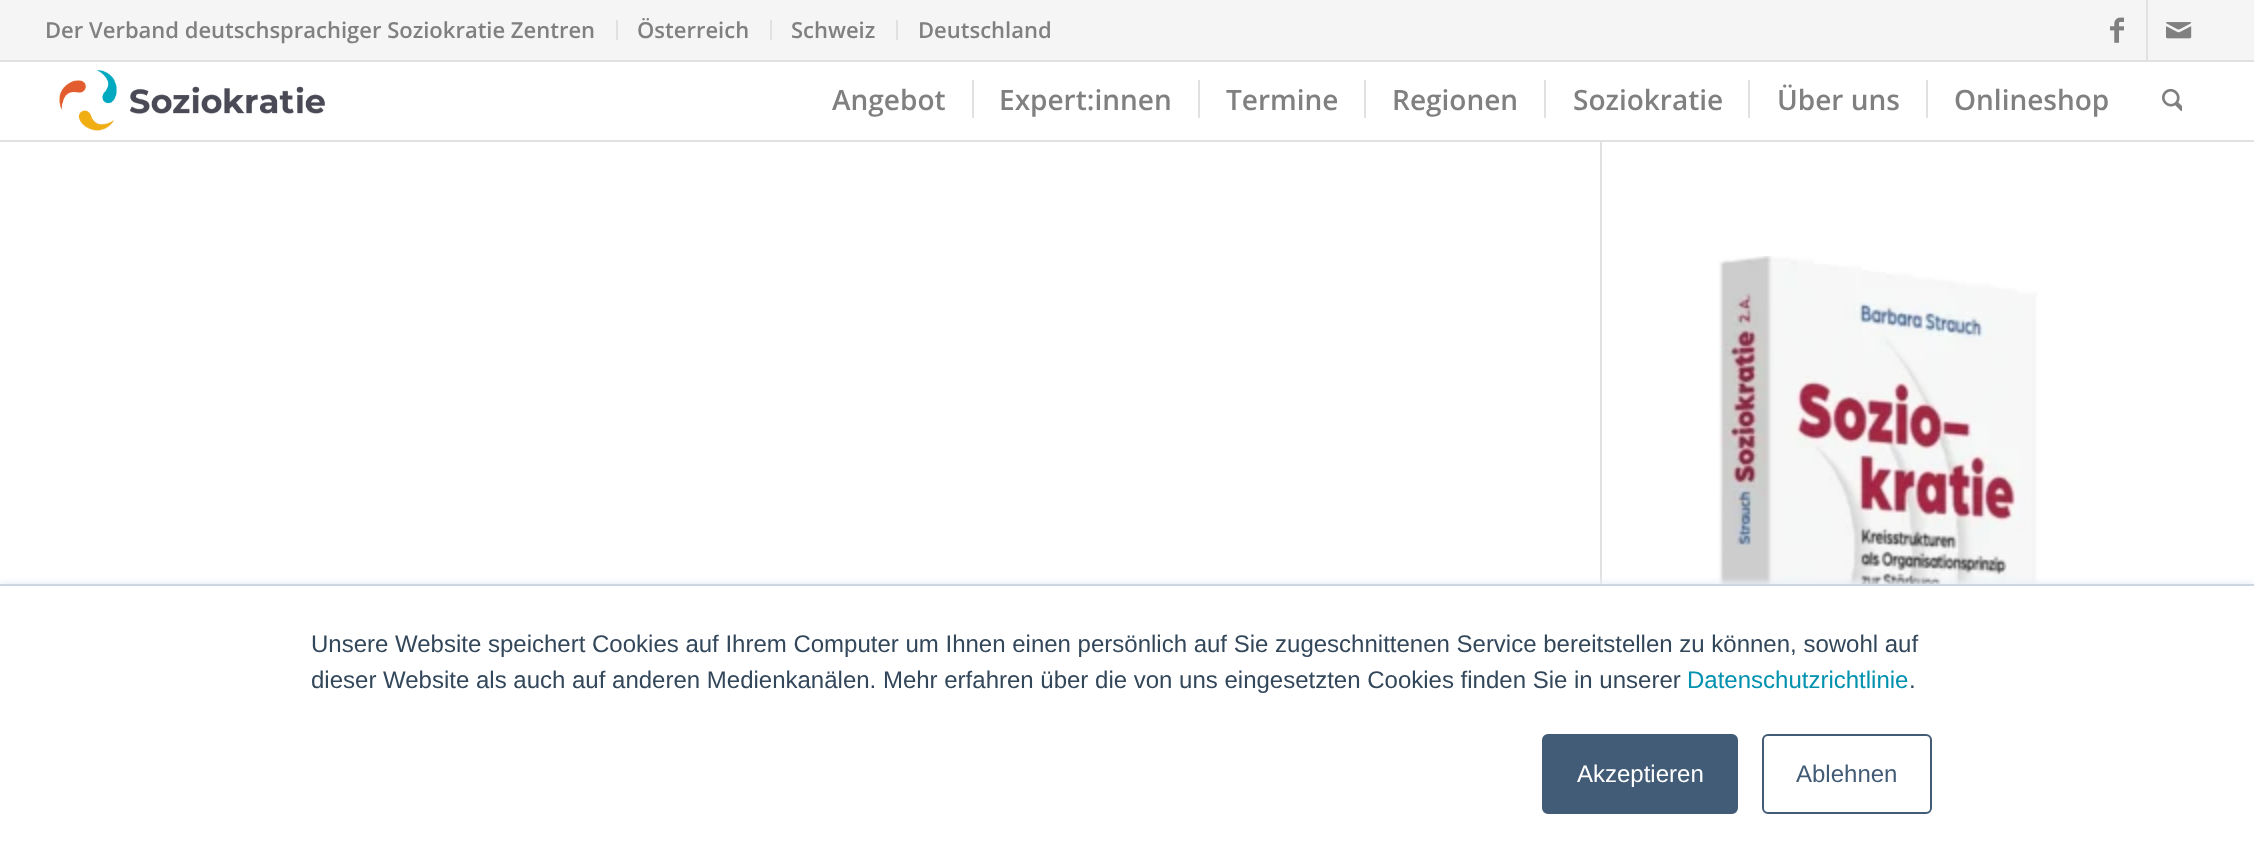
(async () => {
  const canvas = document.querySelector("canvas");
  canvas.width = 2254;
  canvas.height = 865;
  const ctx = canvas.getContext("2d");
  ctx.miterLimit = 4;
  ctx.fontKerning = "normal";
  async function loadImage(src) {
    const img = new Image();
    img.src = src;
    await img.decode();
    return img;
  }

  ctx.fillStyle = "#ffffff";
  ctx.fillRect(0, 0, 2254, 865);
  for (const [x, y, w, h, color] of [
    [0, 0, 2254, 60, "#f5f5f5"],
    [0, 60, 2254, 2, "#e1e1e1"],
    [616, 20, 2, 20, "#e1e1e1"],
    [770, 20, 2, 20, "#e1e1e1"],
    [896, 20, 2, 20, "#e1e1e1"],
    [2146, 0, 2, 60, "#e1e1e1"],
  ]) {
    ctx.fillStyle = color;
    ctx.fillRect(x, y, w, h);
  }
  ctx.drawImage(await loadImage("img/1.png"), 2110, 17, 14, 26);
  ctx.drawImage(await loadImage("img/2.png"), 2166, 22, 26, 17);
  ctx.fillRect(0, 140, 2254, 2);
  ctx.drawImage(await loadImage("img/3.png"), 59, 70, 266, 61);
  for (const [x, y, w, h, color] of [
    [972, 80, 2, 38, "#e1e1e1"],
    [1198, 80, 2, 38, "#e1e1e1"],
    [1364, 80, 2, 38, "#e1e1e1"],
    [1544, 80, 2, 38, "#e1e1e1"],
    [1748, 80, 2, 38, "#e1e1e1"],
    [1926, 80, 2, 38, "#e1e1e1"],
  ]) {
    ctx.fillStyle = color;
    ctx.fillRect(x, y, w, h);
  }
  ctx.drawImage(await loadImage("img/4.png"), 2162, 88, 20, 23);
  ctx.fillRect(1600, 142, 2, 442);
  ctx.drawImage(await loadImage("img/5.png"), 1718, 256, 320, 328);
  ctx.fillStyle = "#eaf0f6";
  ctx.filter = "blur(3px)";
  ctx.beginPath();
  ctx.rect(0, 582, 2254, 282);
  ctx.fill();
  ctx.filter = "none";
  ctx.fillStyle = "#ffffff";
  ctx.fillRect(0, 586, 2254, 279);
  ctx.fillStyle = "#cbd6e2";
  ctx.fillRect(0, 584, 2254, 2);
  ctx.fillStyle = "#425b76";
  ctx.beginPath();
  ctx.roundRect(1543, 735, 194, 78, 5);
  ctx.fill();
  ctx.strokeStyle = "#425b76";
  ctx.lineWidth = 2;
  ctx.stroke();
  ctx.beginPath();
  ctx.roundRect(1763, 735, 168, 78, 5);
  ctx.stroke();
  ctx.font = "600 22px Open Sans";
  ctx.fillStyle = "#808080";
  for (const [text, x, y] of [
    ["Der Verband deutschsprachiger Soziokratie Zentren", 45, 38],
    ["Österreich", 637, 38],
    ["Schweiz", 791, 38],
    ["Deutschland", 918, 38],
  ]) {
    ctx.fillText(text, x, y);
  }
  ctx.font = "600 28px Open Sans";
  for (const [text, x, y] of [
    ["Angebot", 832, 110],
    ["Expert:innen", 999, 110],
    ["Termine", 1226, 110],
    ["Regionen", 1392, 110],
    ["Soziokratie", 1573, 110],
    ["Über uns", 1777, 110],
    ["Onlineshop", 1954, 110],
  ]) {
    ctx.fillText(text, x, y);
  }
  ctx.font = "24px Liberation Sans";
  ctx.fillStyle = "#33475b";
  ctx.fillText("Unsere Website speichert Cookies auf Ihrem Computer um Ihnen einen persönlich auf Sie zugeschnittenen Service bereitstellen zu können, sowohl auf", 311, 652);
  ctx.fillText("dieser Website als auch auf anderen Medienkanälen. Mehr erfahren über die von uns eingesetzten Cookies finden Sie in unserer", 311, 688);
  ctx.fillStyle = "#0091ae";
  ctx.fillText("Datenschutzrichtlinie", 1687, 688);
  ctx.fillStyle = "#33475b";
  ctx.fillText(".", 1909, 688);
  ctx.fillStyle = "#ffffff";
  ctx.fillText("Akzeptieren", 1577, 782);
  ctx.fillStyle = "#425b76";
  ctx.fillText("Ablehnen", 1796, 782);
})();
